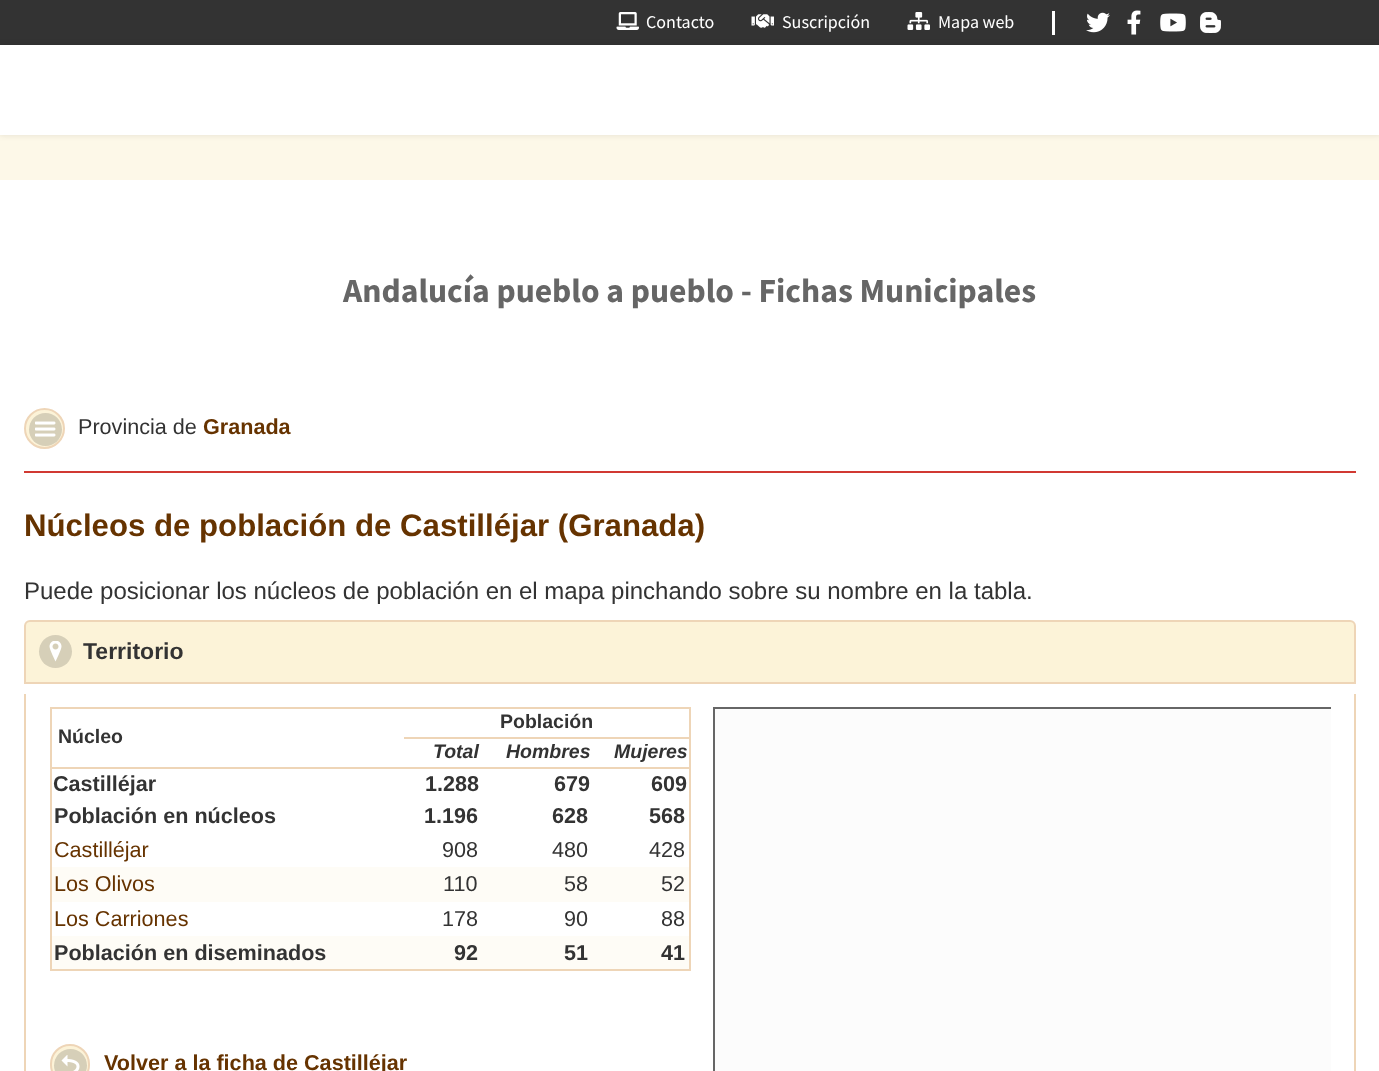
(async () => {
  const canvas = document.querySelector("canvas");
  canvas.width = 1379;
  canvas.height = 1071;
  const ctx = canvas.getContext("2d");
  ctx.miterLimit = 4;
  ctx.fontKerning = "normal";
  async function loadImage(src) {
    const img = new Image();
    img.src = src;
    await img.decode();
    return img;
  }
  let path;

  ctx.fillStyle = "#fdf8e8";
  ctx.fillRect(0, 0, 1379, 1071);
  ctx.fillStyle = "#333333";
  ctx.fillRect(0, 0, 1379, 45);
  ctx.drawImage(await loadImage("img/1.png"), 616, 12, 23, 18);
  ctx.drawImage(await loadImage("img/2.png"), 751, 14, 23, 14);
  ctx.drawImage(await loadImage("img/3.png"), 907, 12, 23, 18);
  ctx.fillStyle = "#ffffff";
  ctx.fillRect(1052, 11, 3, 24);
  ctx.drawImage(await loadImage("img/4.png"), 1086, 12, 24, 21);
  ctx.drawImage(await loadImage("img/5.png"), 1127, 10, 14, 25);
  ctx.drawImage(await loadImage("img/6.png"), 1160, 13, 26, 19);
  ctx.drawImage(await loadImage("img/7.png"), 1200, 12, 21, 21);
  ctx.fillStyle = "rgba(0, 0, 0, 0.1)";
  ctx.filter = "blur(3px)";
  ctx.beginPath();
  ctx.rect(0, 45, 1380, 90);
  ctx.fill();
  ctx.filter = "none";
  ctx.fillStyle = "#ffffff";
  ctx.fillRect(0, 45, 1379, 90);
  ctx.fillRect(0, 180, 1379, 891);
  ctx.fillStyle = "#fcf3d8";
  ctx.beginPath();
  ctx.arc(44.5, 428.5, 19.5, 0, Math.PI * 2);
  ctx.fill();
  ctx.strokeStyle = "#eed5b7";
  ctx.lineWidth = 2;
  ctx.stroke();
  ctx.fillStyle = "#d6cfb8";
  ctx.beginPath();
  ctx.arc(45.5, 429.5, 16.5, 0, Math.PI * 2);
  ctx.fill();
  ctx.drawImage(await loadImage("img/8.png"), 35, 421, 21, 16);
  ctx.fillStyle = "#d13932";
  ctx.fillRect(24, 471, 1332, 2);
  ctx.fillStyle = "#fcf3d8";
  ctx.beginPath();
  ctx.roundRect(25, 621, 1330, 62, [5, 5, 0, 0]);
  ctx.fill();
  ctx.stroke();
  ctx.fillStyle = "#d6cfb8";
  ctx.beginPath();
  ctx.arc(55.5, 651.5, 16.5, 0, Math.PI * 2);
  ctx.fill();
  ctx.drawImage(await loadImage("img/9.png"), 49, 641, 13, 21);
  ctx.fillStyle = "#eed5b7";
  path = new Path2D("M24 694H1356V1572C1356 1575 1353 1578 1350 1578H30C27 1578 24 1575 24 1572ZM26 694H1354V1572C1354 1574 1352 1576 1350 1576H30C28 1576 26 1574 26 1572Z");
  ctx.fill(path, "evenodd");
  for (const [x, y, w, h, color] of [
    [50, 707, 640, 2, "#eed5b7"],
    [689, 707, 2, 264, "#eed5b7"],
    [50, 969, 640, 2, "#eed5b7"],
    [50, 707, 2, 264, "#eed5b7"],
    [50, 767, 640, 2, "#eed5b7"],
    [404, 737, 286, 2, "#eed5b7"],
    [52, 867, 637, 35, "#fefcf6"],
    [52, 936, 637, 33, "#fefcf6"],
  ]) {
    ctx.fillStyle = color;
    ctx.fillRect(x, y, w, h);
  }
  ctx.fillStyle = "#fcf3d8";
  ctx.beginPath();
  ctx.roundRect(51, 1045, 38, 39, 19);
  ctx.fill();
  ctx.stroke();
  ctx.fillStyle = "#d6cfb8";
  ctx.beginPath();
  ctx.arc(70.5, 1065.5, 16.5, 0, Math.PI * 2);
  ctx.fill();
  ctx.drawImage(await loadImage("img/10.png"), 61, 1055, 19, 16);
  ctx.fillStyle = "#fcfcfc";
  ctx.fillRect(715, 709, 616, 362);
  ctx.save();
  ctx.beginPath();
  ctx.rect(50, 707, 1281, 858);
  ctx.clip();
  ctx.strokeStyle = "#666666";
  ctx.strokeRect(714, 708, 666, 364);
  ctx.restore();
  ctx.font = "18px Source Sans Pro";
  ctx.fillStyle = "#ffffff";
  for (const [text, x, y] of [
    ["Contacto", 646, 28],
    ["Suscripción", 782, 28],
    ["Mapa web", 938, 28],
  ]) {
    ctx.fillText(text, x, y);
  }
  ctx.font = "bold 33.6px Source Sans Pro";
  ctx.fillStyle = "#666666";
  ctx.fillText("Andalucía pueblo a pueblo - Fichas Municipales", 343, 302);
  ctx.font = "21.6px Liberation Sans";
  ctx.fillStyle = "#333333";
  ctx.fillText("Provincia de", 78, 434);
  ctx.font = "bold 21.6px Liberation Sans";
  ctx.fillStyle = "#663300";
  ctx.fillText("Granada", 203, 434);
  ctx.font = "bold 31.2px Liberation Sans";
  ctx.fillText("Núcleos de población de Castilléjar (Granada)", 24, 536);
  ctx.font = "24px Liberation Sans";
  ctx.fillStyle = "#333333";
  ctx.fillText("Puede posicionar los núcleos de población en el mapa pinchando sobre su nombre en la tabla.", 24, 599);
  ctx.font = "bold 23px Liberation Sans";
  ctx.fillText("Territorio", 83, 659);
  ctx.font = "bold 19.5px Liberation Sans";
  ctx.fillText("Población", 500, 728);
  ctx.fillText("Núcleo", 58, 743);
  ctx.font = "italic bold 19.5px Liberation Sans";
  for (const [text, x, y] of [
    ["Total", 433, 758],
    ["Hombres", 506, 758],
    ["Mujeres", 614, 758],
  ]) {
    ctx.fillText(text, x, y);
  }
  ctx.font = "bold 21.6px Liberation Sans";
  for (const [text, x, y] of [
    ["Castilléjar", 53, 791],
    ["1.288", 425, 791],
    ["679", 554, 791],
    ["609", 651, 791],
    ["Población en núcleos", 54, 823],
    ["1.196", 424, 823],
    ["628", 552, 823],
    ["568", 649, 823],
  ]) {
    ctx.fillText(text, x, y);
  }
  ctx.font = "21.6px Liberation Sans";
  ctx.fillStyle = "#663300";
  ctx.fillText("Castilléjar", 54, 857);
  ctx.fillStyle = "#333333";
  for (const [text, x, y] of [
    ["908", 442, 857],
    ["480", 552, 857],
    ["428", 649, 857],
  ]) {
    ctx.fillText(text, x, y);
  }
  ctx.fillStyle = "#663300";
  ctx.fillText("Los Olivos", 54, 891);
  ctx.fillStyle = "#333333";
  for (const [text, x, y] of [
    ["110", 443, 891],
    ["58", 564, 891],
    ["52", 661, 891],
  ]) {
    ctx.fillText(text, x, y);
  }
  ctx.fillStyle = "#663300";
  ctx.fillText("Los Carriones", 54, 926);
  ctx.fillStyle = "#333333";
  for (const [text, x, y] of [
    ["178", 442, 926],
    ["90", 564, 926],
    ["88", 661, 926],
  ]) {
    ctx.fillText(text, x, y);
  }
  ctx.font = "bold 21.6px Liberation Sans";
  for (const [text, x, y] of [
    ["Población en diseminados", 54, 960],
    ["92", 454, 960],
    ["51", 564, 960],
    ["41", 661, 960],
  ]) {
    ctx.fillText(text, x, y);
  }
  ctx.fillStyle = "#663300";
  ctx.fillText("Volver a la ficha de Castilléjar", 104, 1070);
})();
